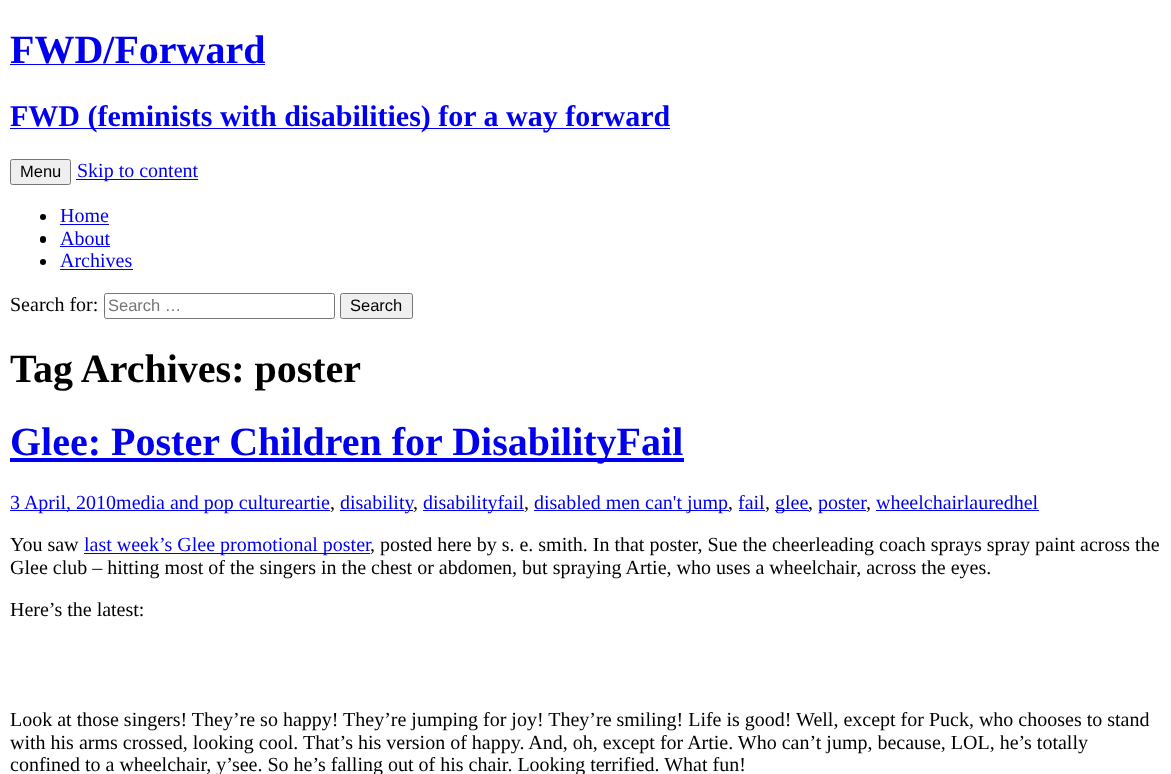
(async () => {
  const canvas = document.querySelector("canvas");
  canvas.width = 1171;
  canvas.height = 774;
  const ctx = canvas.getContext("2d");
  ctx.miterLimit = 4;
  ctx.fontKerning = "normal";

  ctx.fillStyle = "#ffffff";
  ctx.fillRect(0, 0, 1171, 774);
  ctx.fillStyle = "#0000ee";
  ctx.fillRect(10, 64, 255, 1);
  ctx.fillRect(10, 128, 660, 1);
  ctx.fillStyle = "#efefef";
  ctx.beginPath();
  ctx.roundRect(10.5, 159.5, 60, 25, 2);
  ctx.fill();
  ctx.strokeStyle = "#767676";
  ctx.stroke();
  ctx.fillStyle = "#0000ee";
  ctx.fillRect(76, 179, 122, 1);
  ctx.fillStyle = "#000000";
  ctx.beginPath();
  ctx.arc(43, 217, 3, 0, Math.PI * 2);
  ctx.fill();
  ctx.fillStyle = "#0000ee";
  ctx.fillRect(60, 224, 49, 1);
  ctx.fillStyle = "#000000";
  ctx.beginPath();
  ctx.roundRect(40, 236, 6, 7, 3);
  ctx.fill();
  ctx.fillStyle = "#0000ee";
  ctx.fillRect(60, 246, 50, 1);
  ctx.fillStyle = "#000000";
  ctx.beginPath();
  ctx.arc(43, 262, 3, 0, Math.PI * 2);
  ctx.fill();
  ctx.fillStyle = "#0000ee";
  ctx.fillRect(60, 269, 73, 1);
  ctx.beginPath();
  ctx.roundRect(104.5, 293.5, 230, 25, 2);
  ctx.stroke();
  ctx.fillStyle = "#efefef";
  ctx.beginPath();
  ctx.roundRect(340.5, 293.5, 72, 25, 2);
  ctx.fill();
  ctx.stroke();
  for (const [x, y, w, h, color] of [
    [10, 458, 674, 4, "#0000ee"],
    [10, 510, 320, 1, "#0000ee"],
    [340, 510, 73, 1, "#0000ee"],
    [423, 510, 101, 1, "#0000ee"],
    [534, 510, 195, 1, "#0000ee"],
    [739, 510, 26, 1, "#0000ee"],
    [775, 510, 34, 1, "#0000ee"],
    [819, 510, 47, 1, "#0000ee"],
    [876, 510, 163, 1, "#0000ee"],
    [84, 553, 286, 1, "#0000ee"],
  ]) {
    ctx.fillStyle = color;
    ctx.fillRect(x, y, w, h);
  }
  ctx.font = "bold 40px Liberation Serif";
  ctx.fillText("FWD/Forward", 10, 63);
  ctx.font = "bold 30px Liberation Serif";
  ctx.fillText("FWD (feminists with disabilities) for a way forward", 10, 126);
  ctx.font = "16.5px Liberation Sans";
  ctx.fillStyle = "#000000";
  ctx.fillText("Menu", 20, 177);
  ctx.font = "20px Liberation Serif";
  ctx.fillStyle = "#0000ee";
  for (const [text, x, y] of [
    ["Skip to content", 77, 177],
    ["Home", 60, 222],
    ["About", 60, 245],
    ["Archives", 60, 267],
  ]) {
    ctx.fillText(text, x, y);
  }
  ctx.fillStyle = "#000000";
  ctx.fillText("Search for:", 10, 311);
  ctx.font = "16.5px Liberation Sans";
  ctx.fillStyle = "#757575";
  ctx.fillText("Search …", 108, 311);
  ctx.fillStyle = "#000000";
  ctx.fillText("Search", 350, 311);
  ctx.font = "bold 40px Liberation Serif";
  ctx.fillText("Tag Archives: poster", 10, 382);
  ctx.fillStyle = "#0000ee";
  ctx.fillText("Glee: Poster Children for DisabilityFail", 10, 455);
  ctx.font = "20px Liberation Serif";
  ctx.fillText("3 April, 2010media and pop cultureartie", 10, 509);
  ctx.fillStyle = "#000000";
  ctx.fillText(",", 330, 509);
  ctx.fillStyle = "#0000ee";
  for (const [text, x, y] of [
    ["disability", 340, 509],
    ["disabilityfail", 423, 509],
    ["disabled men can't jump", 534, 509],
    ["fail", 738, 509],
    ["glee", 775, 509],
    ["poster", 818, 509],
    ["wheelchairlauredhel", 876, 509],
  ]) {
    ctx.fillText(text, x, y);
  }
  ctx.fillStyle = "#000000";
  for (const [text, x, y] of [
    [",", 413, 509],
    [",", 524, 509],
    [",", 728, 509],
    [",", 765, 509],
    [",", 808, 509],
    [",", 866, 509],
    ["You saw", 10, 551],
  ]) {
    ctx.fillText(text, x, y);
  }
  ctx.fillStyle = "#0000ee";
  ctx.fillText("last week’s Glee promotional poster", 84, 551);
  ctx.fillStyle = "#000000";
  for (const [text, x, y] of [
    [", posted here by s. e. smith. In that poster, Sue the cheerleading coach sprays spray paint across the", 370, 551],
    ["Glee club – hitting most of the singers in the chest or abdomen, but spraying Artie, who uses a wheelchair, across the eyes.", 10, 574],
    ["Here’s the latest:", 10, 616],
    ["Look at those singers! They’re so happy! They’re jumping for joy! They’re smiling! Life is good! Well, except for Puck, who chooses to stand", 10, 726],
    ["with his arms crossed, looking cool. That’s his version of happy. And, oh, except for Artie. Who can’t jump, because, LOL, he’s totally", 10, 749],
    ["confined to a wheelchair, y’see. So he’s falling out of his chair. Looking terrified. What fun!", 10, 771],
  ]) {
    ctx.fillText(text, x, y);
  }
})();
